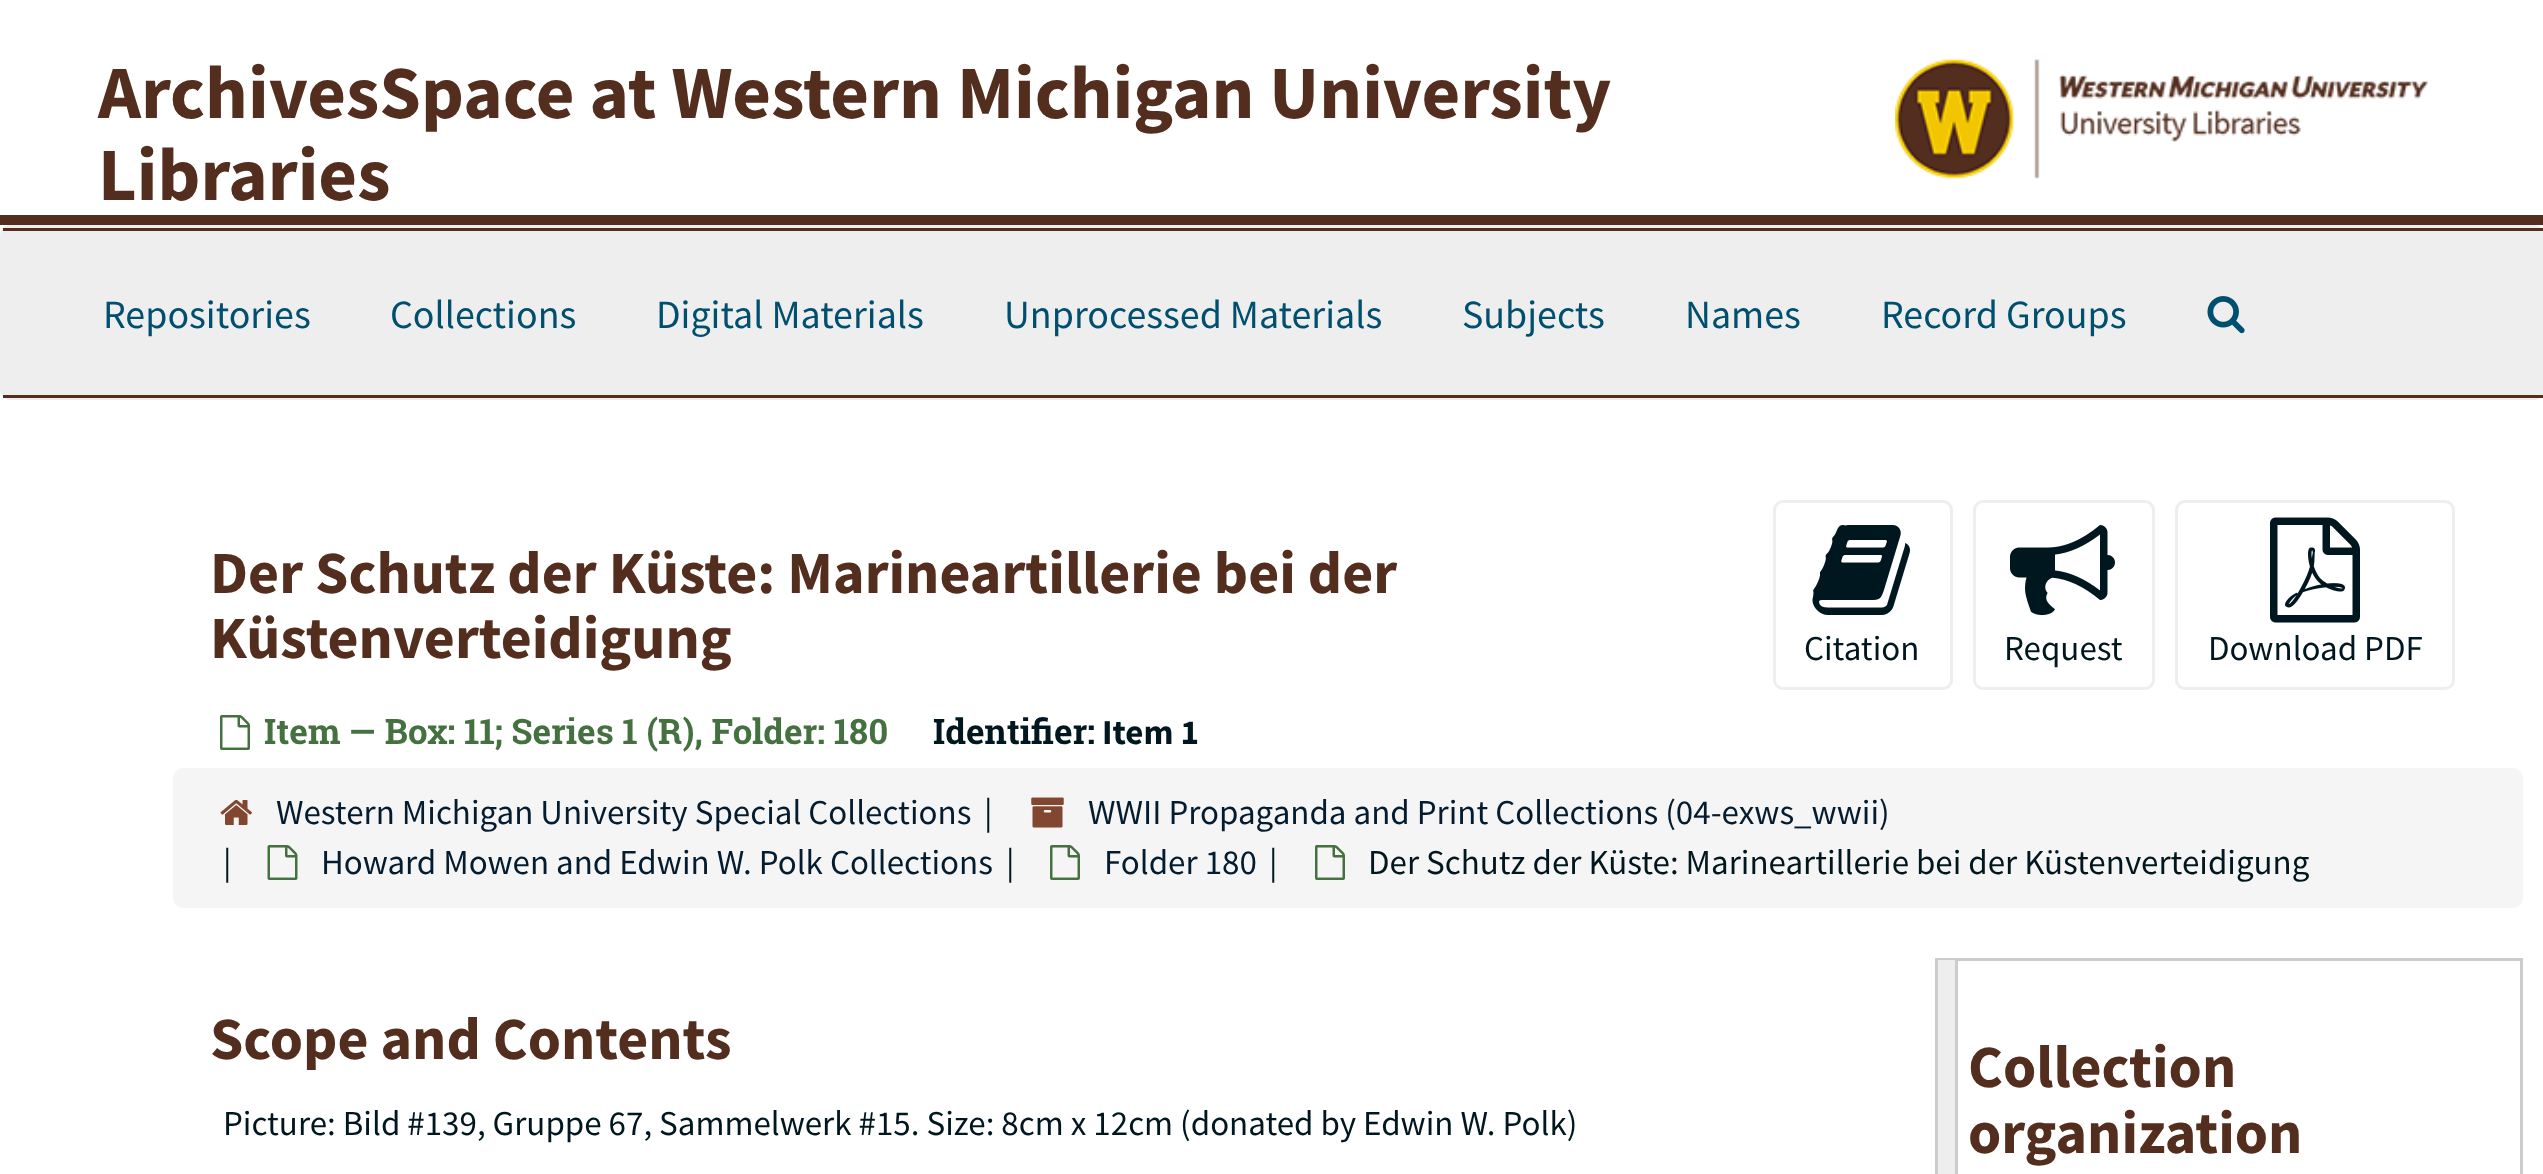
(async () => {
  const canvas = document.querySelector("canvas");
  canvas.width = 2543;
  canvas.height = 1174;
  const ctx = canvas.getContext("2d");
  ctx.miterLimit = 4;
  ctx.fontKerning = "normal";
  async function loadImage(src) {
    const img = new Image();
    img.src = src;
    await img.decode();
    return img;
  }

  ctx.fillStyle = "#ffffff";
  ctx.fillRect(0, 0, 2543, 1174);
  ctx.fillStyle = "#532e1f";
  ctx.fillRect(0, 215, 2543, 10);
  ctx.drawImage(await loadImage("img/1.png"), 1895, 59, 533, 120);
  ctx.beginPath();
  ctx.roundRect(1.5, 226.5, 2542, 172, 8.5);
  ctx.strokeStyle = "#eeeeee";
  ctx.lineWidth = 3;
  ctx.stroke();
  for (const [x, y, w, h, color] of [
    [3, 231, 2539, 164, "#eeeeee"],
    [3, 228, 2540, 3, "#532e1f"],
    [3, 395, 2540, 3, "#532e1f"],
  ]) {
    ctx.fillStyle = color;
    ctx.fillRect(x, y, w, h);
  }
  ctx.drawImage(await loadImage("img/2.png"), 2207, 296, 38, 38);
  ctx.drawImage(await loadImage("img/3.png"), 220, 715, 30, 35);
  ctx.beginPath();
  ctx.roundRect(1774.5, 501.5, 177, 187, 8.5);
  ctx.stroke();
  ctx.drawImage(await loadImage("img/4.png"), 1812, 525, 98, 90);
  ctx.beginPath();
  ctx.roundRect(1974.5, 501.5, 179, 187, 8.5);
  ctx.stroke();
  ctx.drawImage(await loadImage("img/5.png"), 2010, 525, 105, 91);
  ctx.beginPath();
  ctx.roundRect(2176.5, 501.5, 277, 187, 8.5);
  ctx.stroke();
  ctx.drawImage(await loadImage("img/6.png"), 2270, 517, 90, 106);
  ctx.fillStyle = "#f5f5f5";
  ctx.beginPath();
  ctx.roundRect(173, 768, 2350, 140, 10);
  ctx.fill();
  ctx.drawImage(await loadImage("img/7.png"), 220, 799, 32, 26);
  ctx.drawImage(await loadImage("img/8.png"), 1031, 797, 33, 31);
  ctx.drawImage(await loadImage("img/9.png"), 267, 845, 31, 35);
  ctx.drawImage(await loadImage("img/10.png"), 1050, 845, 30, 35);
  ctx.drawImage(await loadImage("img/10.png"), 1315, 845, 30, 35);
  ctx.strokeStyle = "#cccccc";
  ctx.strokeRect(1936.5, 959.5, 585, 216);
  ctx.fillStyle = "#eeeeee";
  ctx.fillRect(1938, 960, 17, 214);
  ctx.fillStyle = "#cccccc";
  ctx.fillRect(1955, 960, 3, 214);
  ctx.font = "bold 75px Source Sans Pro";
  ctx.fillStyle = "#532e1f";
  ctx.fillText("ArchivesSpace at Western Michigan University", 98, 118);
  ctx.fillText("Libraries", 98, 200);
  ctx.font = "40px Source Sans Pro";
  ctx.fillStyle = "#004f6f";
  for (const [text, x, y] of [
    ["Repositories", 103, 328],
    ["Collections", 390, 328],
    ["Digital Materials", 656, 328],
    ["Unprocessed Materials", 1004, 328],
    ["Subjects", 1462, 328],
    ["Names", 1685, 328],
    ["Record Groups", 1881, 328],
  ]) {
    ctx.fillText(text, x, y);
  }
  ctx.font = "bold 60px Source Sans Pro";
  ctx.fillStyle = "#532e1f";
  ctx.fillText("Der Schutz der Küste: Marineartillerie bei der", 210, 593);
  ctx.fillText("Küstenverteidigung", 210, 658);
  ctx.font = "bold 35px Roboto Slab";
  ctx.fillStyle = "#457141";
  ctx.fillText("Item — Box: 11; Series 1 (R), Folder: 180", 264, 744);
  ctx.fillStyle = "#00171f";
  ctx.fillText("Identifier:", 933, 744);
  ctx.font = "bold 35px Source Sans Pro";
  ctx.fillText("Item 1", 1102, 744);
  ctx.font = "35px Source Sans Pro";
  for (const [text, x, y] of [
    ["Citation", 1804, 660],
    ["Request", 2004, 660],
    ["Download PDF", 2208, 660],
  ]) {
    ctx.fillText(text, x, y);
  }
  ctx.fillStyle = "#041c2f";
  ctx.fillText("Western Michigan University Special Collections", 276, 824);
  ctx.fillStyle = "#00171f";
  ctx.fillText("|", 984, 824);
  ctx.fillStyle = "#041c2f";
  ctx.fillText("WWII Propaganda and Print Collections (04-exws_wwii)", 1088, 824);
  ctx.fillStyle = "#00171f";
  ctx.fillText("|", 223, 874);
  ctx.fillStyle = "#041c2f";
  ctx.fillText("Howard Mowen and Edwin W. Polk Collections", 321, 874);
  ctx.fillStyle = "#00171f";
  ctx.fillText("|", 1006, 874);
  ctx.fillStyle = "#041c2f";
  ctx.fillText("Folder 180", 1104, 874);
  ctx.fillStyle = "#00171f";
  ctx.fillText("|", 1269, 874);
  ctx.fillText("Der Schutz der Küste: Marineartillerie bei der Küstenverteidigung", 1368, 874);
  ctx.font = "bold 60px Source Sans Pro";
  ctx.fillStyle = "#532e1f";
  ctx.fillText("Scope and Contents", 210, 1059);
  ctx.font = "35px Source Sans Pro";
  ctx.fillStyle = "#00171f";
  ctx.fillText("Picture: Bild #139, Gruppe 67, Sammelwerk #15. Size: 8cm x 12cm (donated by Edwin W. Polk)", 223, 1135);
  ctx.font = "bold 60px Source Sans Pro";
  ctx.fillStyle = "#532e1f";
  ctx.fillText("Collection", 1968, 1087);
  ctx.fillText("organization", 1968, 1153);
})();
